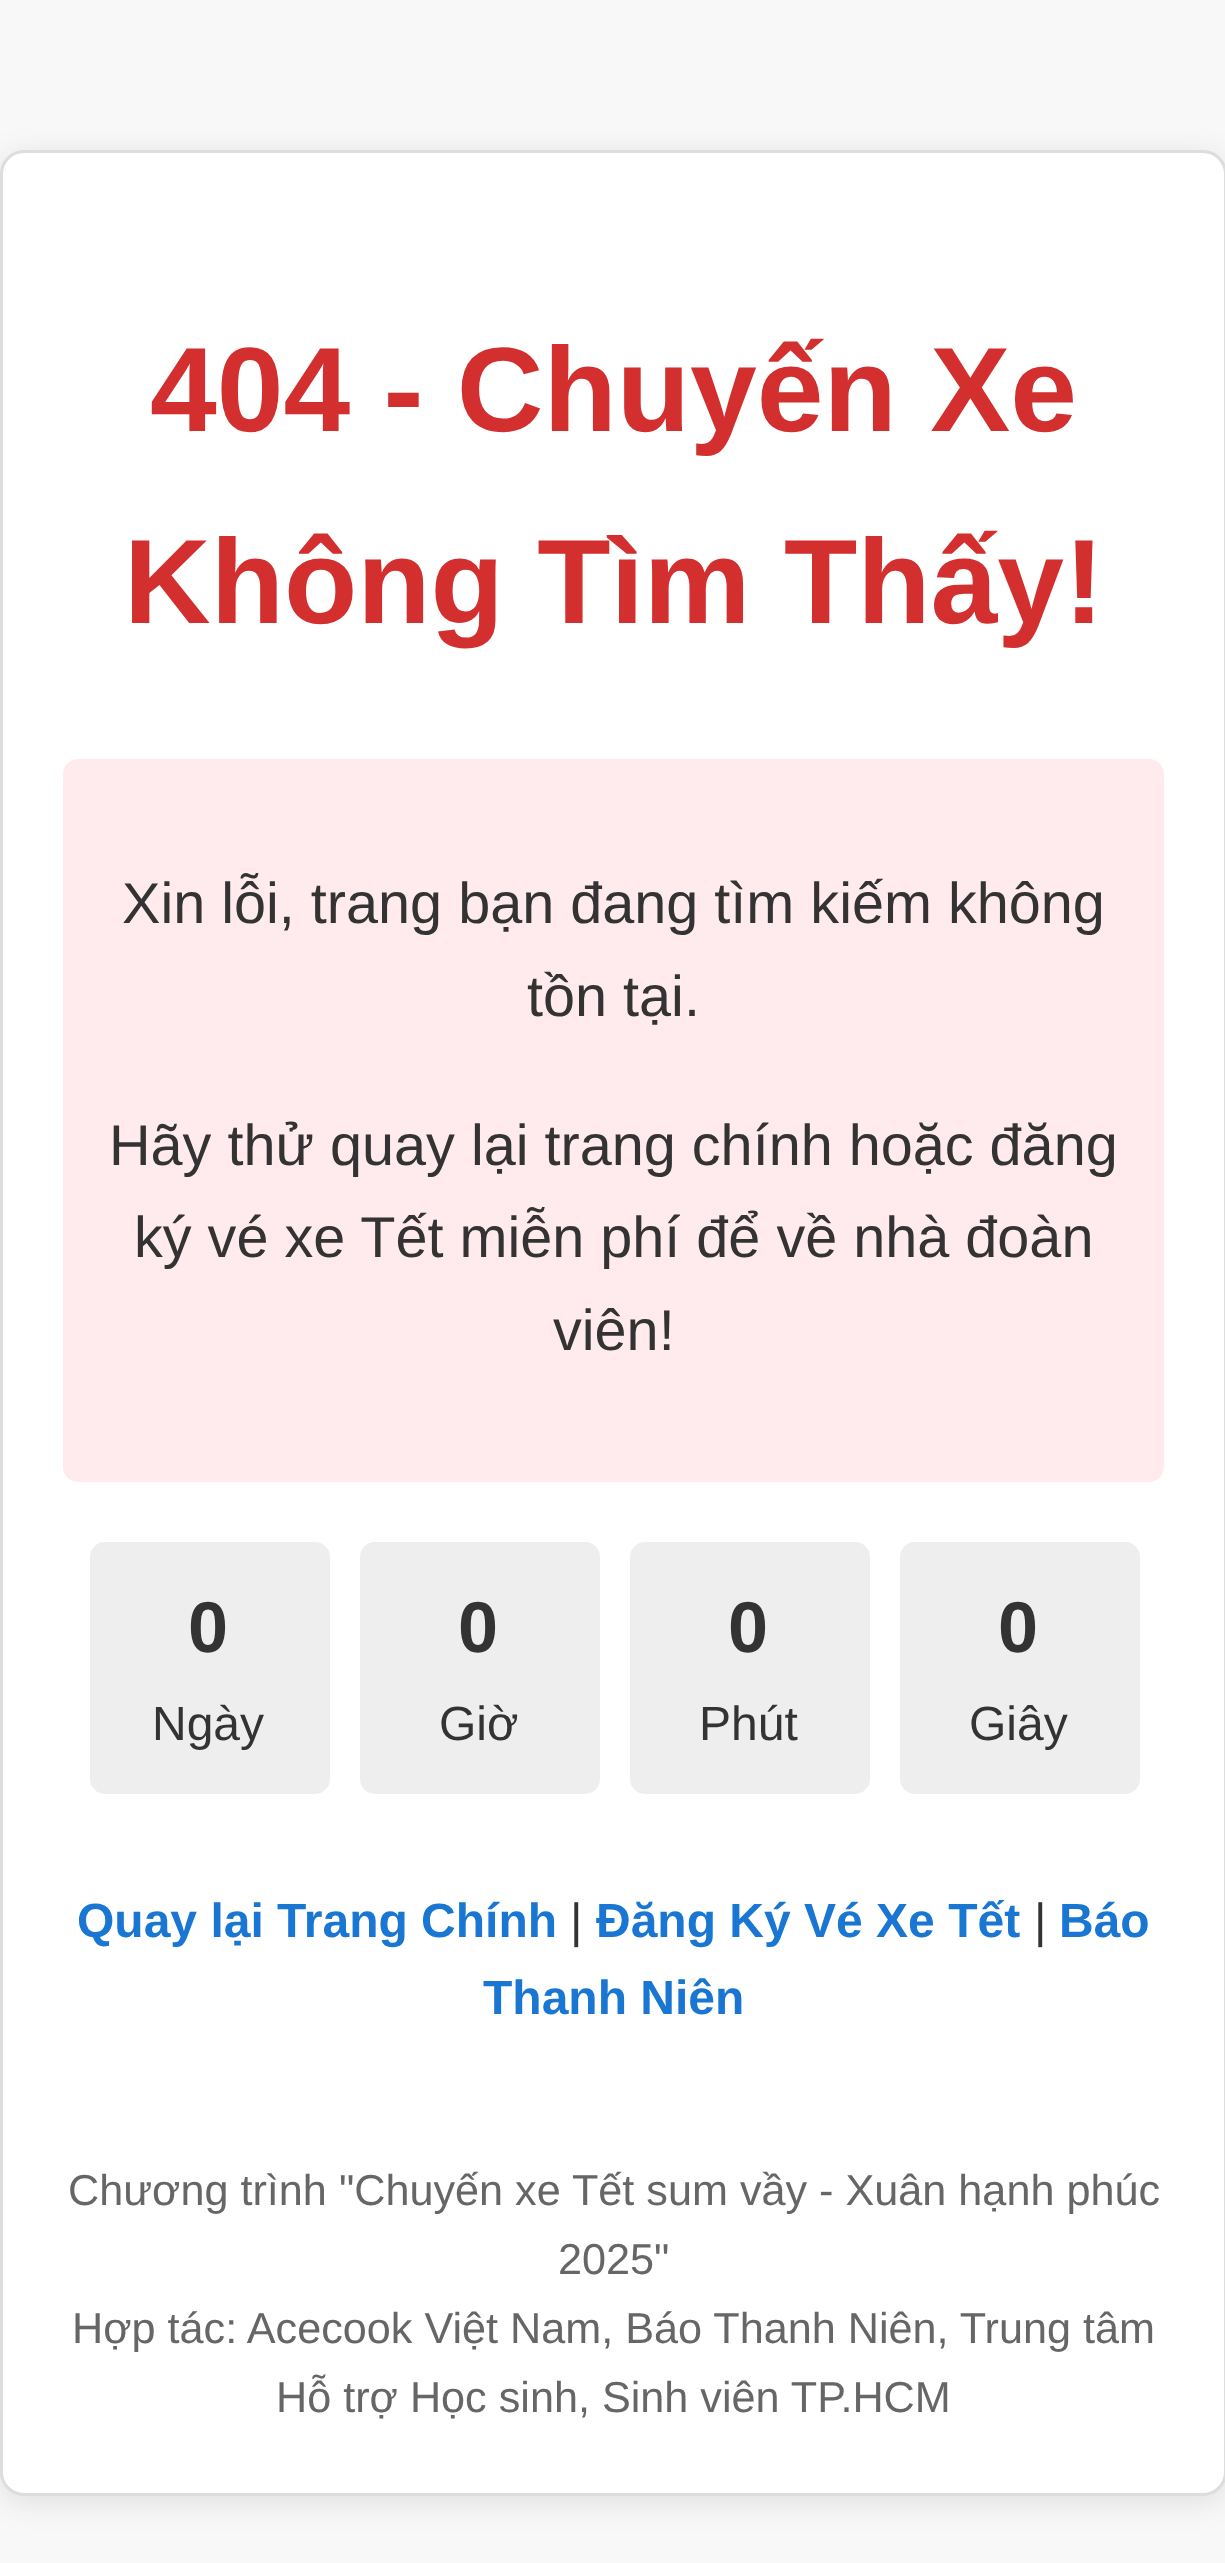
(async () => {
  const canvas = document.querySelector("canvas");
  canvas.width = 1225;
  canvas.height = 2563;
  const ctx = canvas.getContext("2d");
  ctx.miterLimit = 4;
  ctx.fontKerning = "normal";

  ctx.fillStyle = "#f8f8f8";
  ctx.fillRect(0, 0, 1225, 2563);
  ctx.fillStyle = "rgba(0, 0, 0, 0.1)";
  ctx.filter = "blur(15px)";
  ctx.beginPath();
  ctx.roundRect(0, 156, 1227, 2346, 24);
  ctx.fill();
  ctx.filter = "none";
  ctx.fillStyle = "#ffffff";
  ctx.beginPath();
  ctx.roundRect(1.5, 151.5, 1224, 2343, 22.5);
  ctx.fill();
  ctx.strokeStyle = "#dddddd";
  ctx.lineWidth = 3;
  ctx.stroke();
  ctx.fillStyle = "#ffebee";
  ctx.beginPath();
  ctx.roundRect(63, 759, 1101, 723, 15);
  ctx.fill();
  ctx.fillStyle = "#eeeeee";
  ctx.beginPath();
  ctx.roundRect(90, 1542, 240, 252, 15);
  ctx.fill();
  ctx.beginPath();
  ctx.roundRect(360, 1542, 240, 252, 15);
  ctx.fill();
  ctx.beginPath();
  ctx.roundRect(630, 1542, 240, 252, 15);
  ctx.fill();
  ctx.beginPath();
  ctx.roundRect(900, 1542, 240, 252, 15);
  ctx.fill();
  ctx.font = "bold 120px Liberation Sans";
  ctx.fillStyle = "#d32f2f";
  ctx.fillText("404 - Chuyến Xe", 150, 431);
  ctx.fillText("Không Tìm Thấy!", 124, 623);
  ctx.font = "57.6px Liberation Sans";
  ctx.fillStyle = "#333333";
  for (const [text, x, y] of [
    ["Xin lỗi, trang bạn đang tìm kiếm không", 122, 923],
    ["tồn tại.", 527, 1016],
    ["Hãy thử quay lại trang chính hoặc đăng", 109, 1165],
    ["ký vé xe Tết miễn phí để về nhà đoàn", 134, 1257],
    ["viên!", 553, 1350],
  ]) {
    ctx.fillText(text, x, y);
  }
  ctx.font = "bold 72px Liberation Sans";
  ctx.fillText("0", 188, 1652);
  ctx.font = "48px Liberation Sans";
  ctx.fillText("Ngày", 152, 1740);
  ctx.font = "bold 72px Liberation Sans";
  ctx.fillText("0", 458, 1652);
  ctx.font = "48px Liberation Sans";
  ctx.fillText("Giờ", 439, 1740);
  ctx.font = "bold 72px Liberation Sans";
  ctx.fillText("0", 728, 1652);
  ctx.font = "48px Liberation Sans";
  ctx.fillText("Phút", 699, 1740);
  ctx.font = "bold 72px Liberation Sans";
  ctx.fillText("0", 998, 1652);
  ctx.font = "48px Liberation Sans";
  ctx.fillText("Giây", 969, 1740);
  ctx.font = "bold 48px Liberation Sans";
  ctx.fillStyle = "#1976d2";
  ctx.fillText("Quay lại Trang Chính", 77, 1937);
  ctx.font = "48px Liberation Sans";
  ctx.fillStyle = "#333333";
  ctx.fillText("|", 570, 1937);
  ctx.font = "bold 48px Liberation Sans";
  ctx.fillStyle = "#1976d2";
  ctx.fillText("Đăng Ký Vé Xe Tết", 596, 1937);
  ctx.font = "48px Liberation Sans";
  ctx.fillStyle = "#333333";
  ctx.fillText("|", 1034, 1937);
  ctx.font = "bold 48px Liberation Sans";
  ctx.fillStyle = "#1976d2";
  ctx.fillText("Báo", 1059, 1937);
  ctx.fillText("Thanh Niên", 483, 2014);
  ctx.font = "43.2px Liberation Sans";
  ctx.fillStyle = "#666666";
  for (const [text, x, y] of [
    ["Chương trình \"Chuyến xe Tết sum vầy - Xuân hạnh phúc", 68, 2205],
    ["2025\"", 558, 2274],
    ["Hợp tác: Acecook Việt Nam, Báo Thanh Niên, Trung tâm", 72, 2343],
    ["Hỗ trợ Học sinh, Sinh viên TP.HCM", 276, 2412],
  ]) {
    ctx.fillText(text, x, y);
  }
})();
